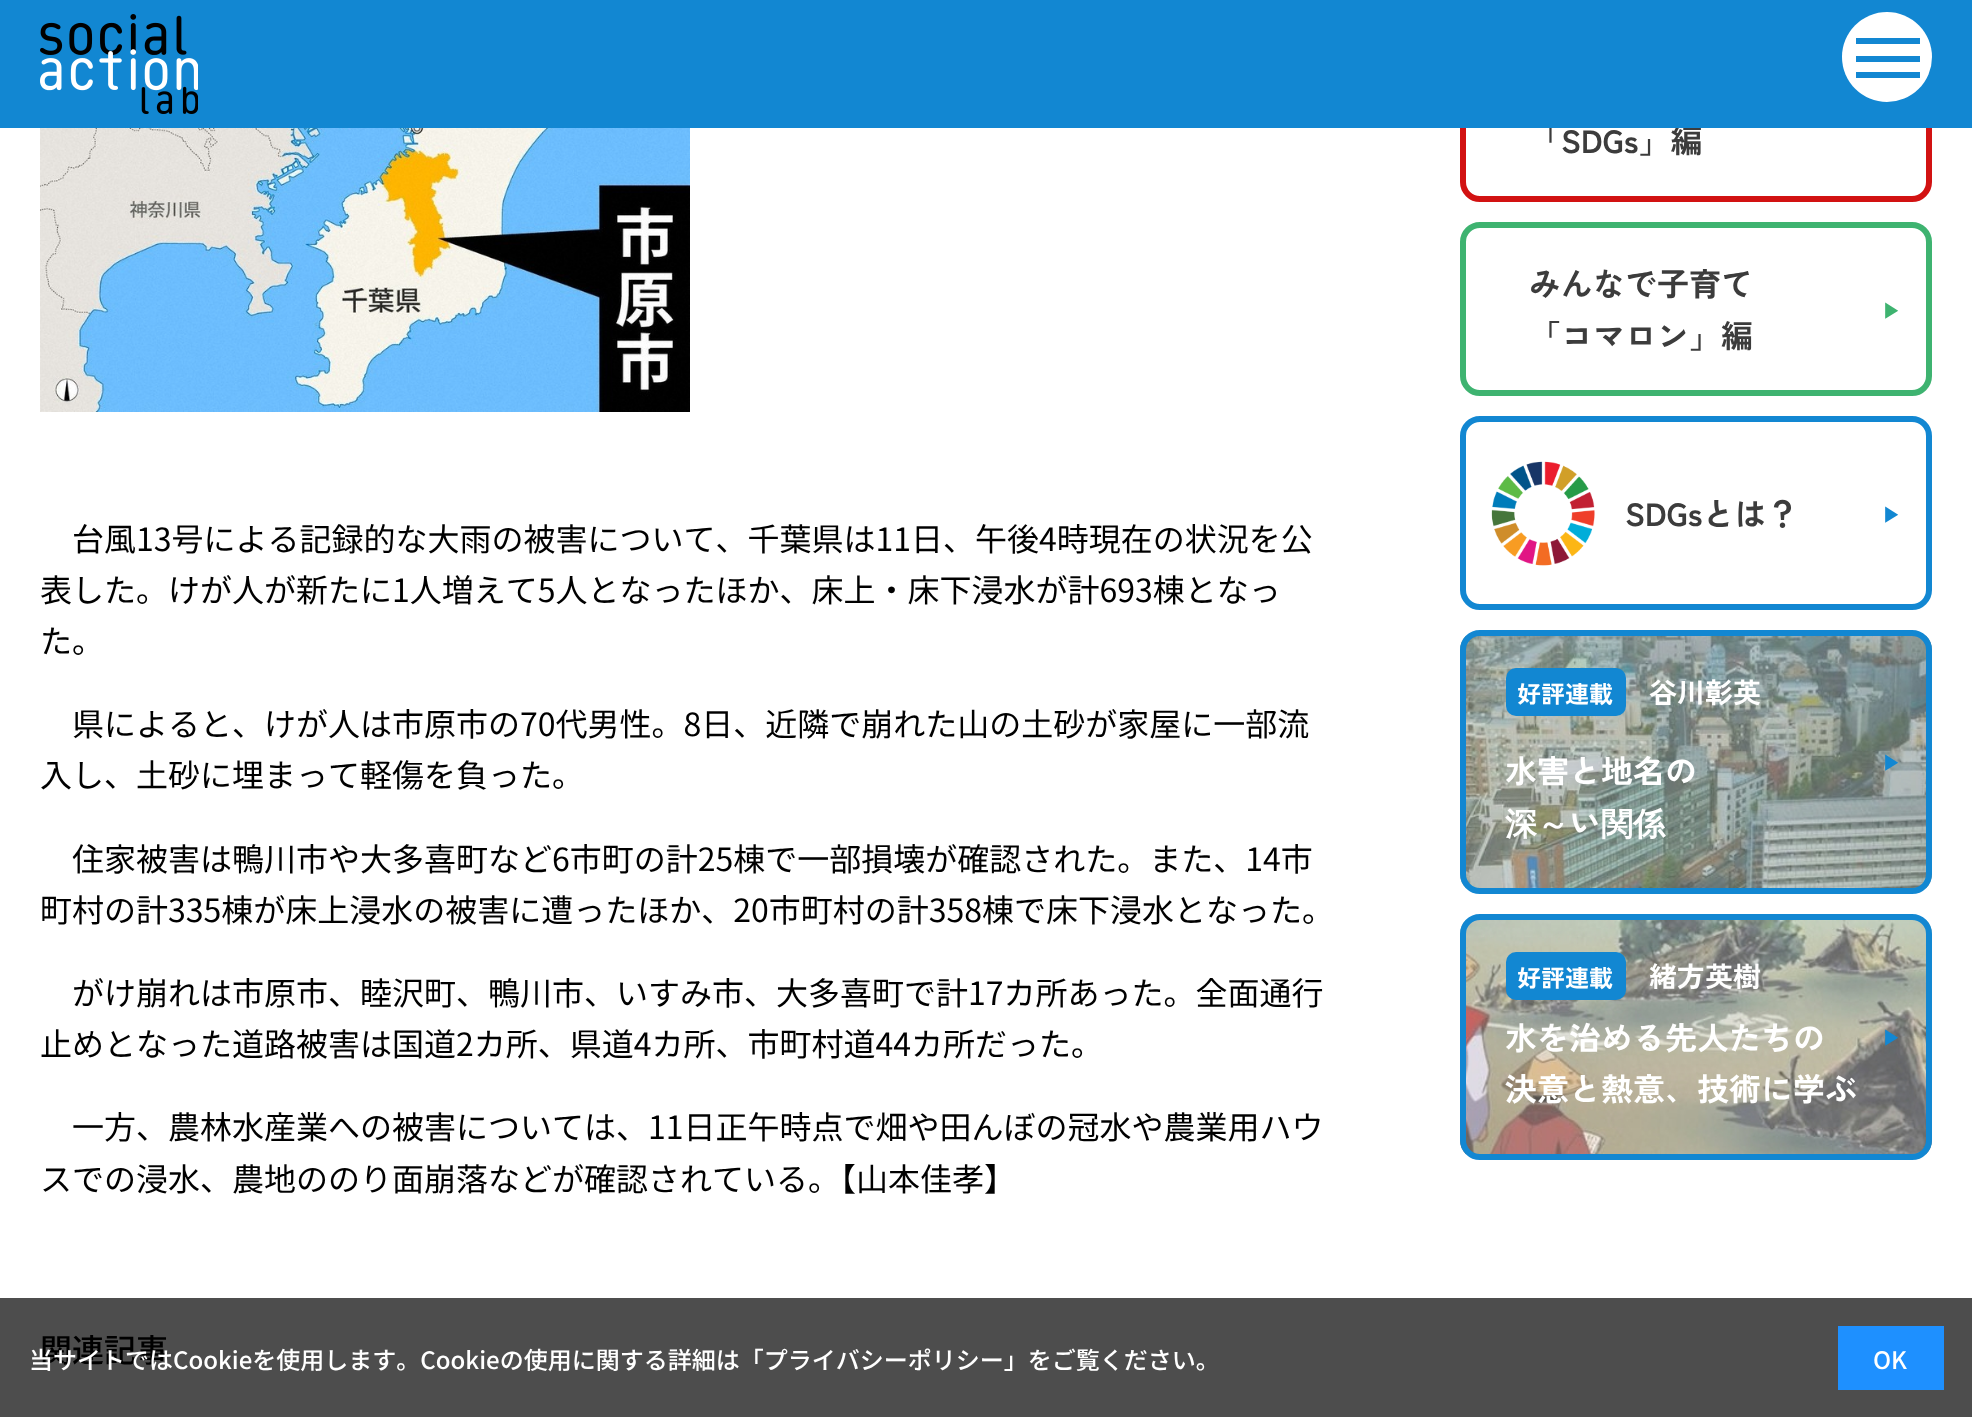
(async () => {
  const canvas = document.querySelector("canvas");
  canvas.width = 1972;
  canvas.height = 1417;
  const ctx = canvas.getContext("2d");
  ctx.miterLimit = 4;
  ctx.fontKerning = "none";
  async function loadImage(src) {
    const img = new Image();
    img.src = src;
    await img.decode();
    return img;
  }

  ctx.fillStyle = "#ffffff";
  ctx.fillRect(0, 0, 1972, 1417);
  ctx.fillStyle = "#4d4d4d";
  ctx.fillRect(0, 1298, 1972, 119);
  ctx.drawImage(await loadImage("img/2.png"), 40, 128, 650, 284);
  ctx.beginPath();
  ctx.roundRect(1463, 31, 466, 168, 17);
  ctx.strokeStyle = "#d21212";
  ctx.lineWidth = 6;
  ctx.stroke();
  ctx.beginPath();
  ctx.roundRect(1463, 225, 466, 168, 17);
  ctx.strokeStyle = "#3eb370";
  ctx.stroke();
  ctx.beginPath();
  ctx.roundRect(1463, 419, 466, 188, 17);
  ctx.strokeStyle = "#1287d2";
  ctx.stroke();
  ctx.drawImage(await loadImage("img/3.png"), 1491, 461, 104, 105);
  ctx.drawImage(await loadImage("img/4.png"), 1460, 636, 472, 252);
  ctx.beginPath();
  ctx.roundRect(1463, 633, 466, 258, 17);
  ctx.stroke();
  ctx.fillStyle = "#1287d2";
  ctx.beginPath();
  ctx.roundRect(1506, 668, 120, 48, 10);
  ctx.fill();
  ctx.drawImage(await loadImage("img/5.png"), 1460, 920, 472, 234);
  ctx.beginPath();
  ctx.roundRect(1463, 917, 466, 240, 17);
  ctx.stroke();
  ctx.beginPath();
  ctx.roundRect(1506, 952, 120, 48, 10);
  ctx.fill();
  ctx.fillStyle = "#1e90ff";
  ctx.fillRect(1838, 1326, 106, 64);
  ctx.font = "32px Noto Sans JP";
  ctx.fillStyle = "#000000";
  for (const [text, x, y] of [
    ["台風13号による記録的な大雨の被害について、千葉県は11日、午後4時現在の状況を公", 72, 551],
    ["表した。けが人が新たに1人増えて5人となったほか、床上・床下浸水が計693棟となっ", 40, 602],
    ["た。", 40, 653],
    ["県によると、けが人は市原市の70代男性。8日、近隣で崩れた山の土砂が家屋に一部流", 72, 736],
    ["入し、土砂に埋まって軽傷を負った。", 40, 787],
    ["住家被害は鴨川市や大多喜町など6市町の計25棟で一部損壊が確認された。また、14市", 72, 871],
    ["町村の計335棟が床上浸水の被害に遭ったほか、20市町村の計358棟で床下浸水となった。", 40, 922],
    ["がけ崩れは市原市、睦沢町、鴨川市、いすみ市、大多喜町で計17カ所あった。全面通行", 72, 1005],
    ["止めとなった道路被害は国道2カ所、県道4カ所、市町村道44カ所だった。", 40, 1056],
    ["一方、農林水産業への被害については、11日正午時点で畑や田んぼの冠水や農業用ハウ", 72, 1139],
    ["スでの浸水、農地ののり面崩落などが確認されている。【山本佳孝】", 40, 1191],
  ]) {
    ctx.fillText(text, x, y);
  }
  ctx.font = "500 32px Noto Sans JP";
  ctx.fillText("関連記事", 40, 1362);
  ctx.font = "bold 32px Zen Kaku Gothic New";
  ctx.fillStyle = "#3c3c3c";
  ctx.fillText("「SDGs」編", 1529, 153);
  ctx.fillStyle = "#1287d2";
  ctx.fillRect(0, 0, 1972, 128);
  ctx.fillStyle = "#ffffff";
  ctx.beginPath();
  ctx.arc(1887, 57, 45, 0, Math.PI * 2);
  ctx.fill();
  for (const [x, y, w, h, color] of [
    [1856, 72, 64, 6, "#1287d2"],
    [1856, 56, 64, 6, "#1287d2"],
    [1856, 38, 64, 6, "#1287d2"],
  ]) {
    ctx.fillStyle = color;
    ctx.fillRect(x, y, w, h);
  }
  ctx.drawImage(await loadImage("img/1.png"), 40, 14, 158, 100);
  ctx.fillStyle = "#3c3c3c";
  ctx.fillText("みんなで子育て", 1529, 296);
  ctx.fillText("「コマロン」編", 1529, 348);
  ctx.font = "500 20px WenQuanYi Zen Hei";
  ctx.fillStyle = "#3eb370";
  ctx.fillText("▶︎", 1882, 318);
  ctx.font = "bold 32px Zen Kaku Gothic New";
  ctx.fillStyle = "#3c3c3c";
  ctx.fillText("SDGsとは？", 1625, 526);
  ctx.font = "500 20px WenQuanYi Zen Hei";
  ctx.fillStyle = "#1287d2";
  ctx.fillText("▶︎", 1882, 522);
  ctx.font = "bold 24px Zen Kaku Gothic New";
  ctx.fillStyle = "#ffffff";
  ctx.fillText("好評連載", 1517, 703);
  ctx.font = "bold 28px Zen Kaku Gothic New";
  ctx.fillText("谷川彰英", 1649, 703);
  ctx.font = "bold 32px Zen Kaku Gothic New";
  ctx.fillText("水害と地名の", 1505, 783);
  ctx.font = "bold 32px WenQuanYi Zen Hei";
  ctx.fillText("深～", 1505, 835);
  ctx.font = "bold 32px Zen Kaku Gothic New";
  ctx.fillText("い", 1569, 835);
  ctx.font = "bold 32px WenQuanYi Zen Hei";
  ctx.fillText("関係", 1601, 835);
  ctx.font = "500 20px WenQuanYi Zen Hei";
  ctx.fillStyle = "#1287d2";
  ctx.fillText("▶︎", 1882, 770);
  ctx.font = "bold 24px Zen Kaku Gothic New";
  ctx.fillStyle = "#ffffff";
  ctx.fillText("好評連載", 1517, 987);
  ctx.font = "bold 28px Zen Kaku Gothic New";
  ctx.fillText("緒方英樹", 1649, 987);
  ctx.font = "bold 32px Zen Kaku Gothic New";
  ctx.fillText("水を治める先人たちの", 1505, 1050);
  ctx.fillText("決意と熱意、技術に学ぶ", 1505, 1101);
  ctx.font = "500 20px WenQuanYi Zen Hei";
  ctx.fillStyle = "#1287d2";
  ctx.fillText("▶︎", 1882, 1045);
  ctx.font = "500 24px Noto Sans JP";
  ctx.fillStyle = "#ffffff";
  ctx.fillText("当サイトではCookieを使用します。Cookieの使用に関する詳細は「プライバシーポリシー」をご覧ください。", 29, 1369);
  ctx.fillText("OK", 1873, 1369);
})();
